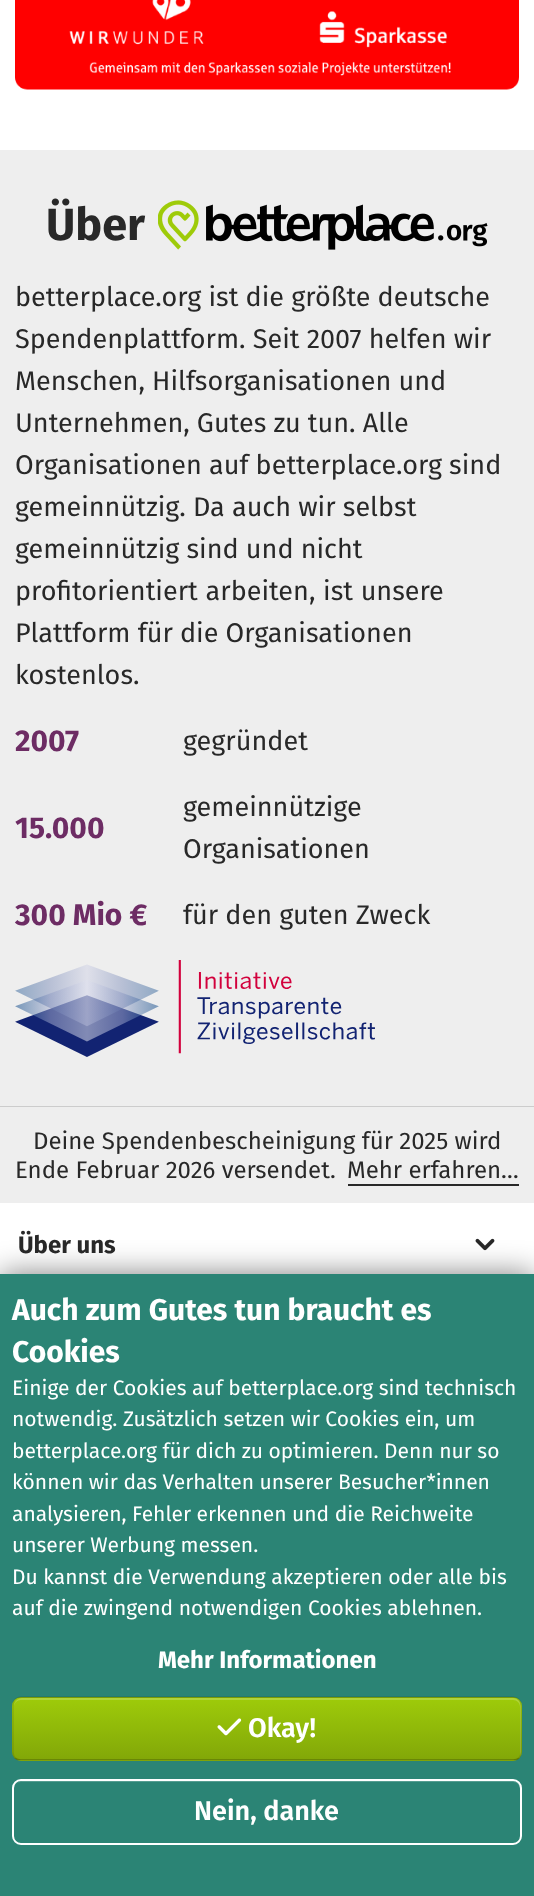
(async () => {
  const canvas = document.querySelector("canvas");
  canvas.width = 534;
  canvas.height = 1896;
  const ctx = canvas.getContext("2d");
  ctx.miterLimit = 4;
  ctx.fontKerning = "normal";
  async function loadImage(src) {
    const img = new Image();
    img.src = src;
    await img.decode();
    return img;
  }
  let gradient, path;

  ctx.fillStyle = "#ffffff";
  ctx.fillRect(0, 0, 534, 1896);
  ctx.drawImage(await loadImage("img/1.png"), 15, 0, 504, 90);
  ctx.fillStyle = "#eeeeee";
  ctx.fillRect(0, 150, 534, 956);
  ctx.drawImage(await loadImage("img/2.png"), 158, 200, 330, 50);
  ctx.drawImage(await loadImage("img/3.png"), 15, 960, 360, 97);
  for (const [x, y, w, h, color] of [
    [0, 1106, 534, 1, "#cccccc"],
    [0, 1107, 534, 96, "#eeeeee"],
    [348, 1184, 171, 2, "#282828"],
  ]) {
    ctx.fillStyle = color;
    ctx.fillRect(x, y, w, h);
  }
  ctx.drawImage(await loadImage("img/4.png"), 475, 1238, 20, 13);
  ctx.fillStyle = "rgba(0, 0, 0, 0.5)";
  ctx.filter = "blur(15px)";
  ctx.beginPath();
  ctx.rect(0, 1274, 534, 622);
  ctx.fill();
  ctx.filter = "none";
  ctx.fillStyle = "#2b8475";
  ctx.fillRect(0, 1274, 534, 622);
  ctx.save();
  ctx.beginPath();
  ctx.roundRect(12, 1697, 510, 64, 9);
  ctx.clip();
  gradient = ctx.createLinearGradient(267, 1637, 267, 1698);
  gradient.addColorStop(0, "#9ecb0a");
  gradient.addColorStop(1, "#82a708");
  ctx.fillStyle = gradient;
  ctx.fillRect(12, 1697, 510, 1);
  gradient = ctx.createLinearGradient(267, 1698, 267, 1760);
  gradient.addColorStop(0, "#9ecb0a");
  gradient.addColorStop(1, "#82a708");
  ctx.fillStyle = gradient;
  ctx.fillRect(12, 1698, 510, 62);
  gradient = ctx.createLinearGradient(267, 1760, 267, 1821);
  gradient.addColorStop(0, "#9ecb0a");
  gradient.addColorStop(1, "#82a708");
  ctx.fillStyle = gradient;
  ctx.fillRect(12, 1760, 510, 1);
  ctx.restore();
  ctx.fillStyle = "rgba(255, 255, 255, 0.2)";
  path = new Path2D("M21 1700H513C517 1700 520 1703 520 1707V1754V1757C520 1755 521 1754 521 1752V1706C521 1702 517 1698 513 1698H22C18 1698 14 1702 14 1706V1707C14 1703 17 1700 21 1700Z");
  ctx.fill(path);
  path = new Path2D("M519 1758C517.5 1759.5 515 1760 513 1760H21C19 1760 16.5 1759.5 15 1758");
  ctx.strokeStyle = "rgba(0, 0, 0, 0.25)";
  ctx.lineWidth = 1.5;
  ctx.stroke(path);
  path = new Path2D("M15 1758C13.5 1756.5 13 1754 13 1752V1705.5C13 1703.5 13.5 1701 15 1699.5C16.5 1698 19 1697 21 1697H513C515 1697 517.5 1698 519 1699.5C520.5 1701 521 1703.5 521 1705.5V1752C521 1754 520.5 1756.5 519 1758");
  ctx.strokeStyle = "rgba(0, 0, 0, 0.1)";
  ctx.stroke(path);
  ctx.drawImage(await loadImage("img/5.png"), 217, 1718, 25, 18);
  ctx.fillStyle = "#559d91";
  path = new Path2D("M21 1782H513C517 1782 520 1785 520 1790V1838V1841C520 1839 521 1838 521 1836V1789C521 1785 517 1781 513 1781H22C18 1781 14 1785 14 1789V1790C14 1785 17 1782 21 1782Z");
  ctx.fill(path);
  ctx.beginPath();
  ctx.roundRect(13, 1780, 508, 64, 8);
  ctx.strokeStyle = "#ffffff";
  ctx.lineWidth = 2;
  ctx.stroke();
  ctx.font = "bold 45px Fira Sans";
  ctx.fillStyle = "#282828";
  ctx.fillText("Über", 46, 240);
  ctx.font = "27px Fira Sans";
  for (const [text, x, y] of [
    ["betterplace.org ist die größte deutsche", 15, 306],
    ["Spendenplattform. Seit 2007 helfen wir", 15, 348],
    ["Menschen, Hilfsorganisationen und", 15, 390],
    ["Unternehmen, Gutes zu tun. Alle", 15, 432],
    ["Organisationen auf betterplace.org sind", 15, 474],
    ["gemeinnützig. Da auch wir selbst", 15, 516],
    ["gemeinnützig sind und nicht", 15, 558],
  ]) {
    ctx.fillText(text, x, y);
  }
  ctx.wordSpacing = "0.5px";
  ctx.fillText("profitorientiert arbeiten, ist unsere", 15, 600);
  ctx.wordSpacing = "0px";
  ctx.fillText("Plattform für die Organisationen", 15, 642);
  ctx.fillText("kostenlos.", 15, 684);
  ctx.font = "bold 30px Fira Sans";
  ctx.fillStyle = "#6d2c64";
  ctx.fillText("2007", 15, 751);
  ctx.font = "27px Fira Sans";
  ctx.fillStyle = "#282828";
  ctx.fillText("gegründet", 183, 750);
  ctx.font = "bold 30px Fira Sans";
  ctx.fillStyle = "#6d2c64";
  ctx.fillText("15.000", 15, 838);
  ctx.font = "27px Fira Sans";
  ctx.fillStyle = "#282828";
  ctx.fillText("gemeinnützige", 183, 816);
  ctx.fillText("Organisationen", 183, 858);
  ctx.font = "bold 30px Fira Sans";
  ctx.fillStyle = "#6d2c64";
  ctx.fillText("300 Mio €", 15, 925);
  ctx.font = "27px Fira Sans";
  ctx.fillStyle = "#282828";
  ctx.fillText("für den guten Zweck", 183, 924);
  ctx.font = "24px Fira Sans";
  for (const [text, x, y] of [
    ["Deine Spendenbescheinigung für 2025 wird", 33, 1149],
    ["Ende Februar 2026 versendet.", 15, 1178],
    ["Mehr erfahren…", 347, 1178],
  ]) {
    ctx.fillText(text, x, y);
  }
  ctx.font = "bold 24px Fira Sans";
  ctx.fillText("Über uns", 18, 1253);
  ctx.font = "bold 30px Fira Sans";
  ctx.fillStyle = "#ffffff";
  ctx.fillText("Auch zum Gutes tun braucht es", 12, 1320);
  ctx.fillText("Cookies", 12, 1362);
  ctx.font = "21px Fira Sans";
  for (const [text, x, y] of [
    ["Einige der Cookies auf betterplace.org sind technisch", 12, 1395],
    ["notwendig. Zusätzlich setzen wir Cookies ein, um", 12, 1426],
    ["betterplace.org für dich zu optimieren. Denn nur so", 12, 1458],
    ["können wir das Verhalten unserer Besucher*innen", 12, 1489],
    ["analysieren, Fehler erkennen und die Reichweite", 12, 1521],
    ["unserer Werbung messen.", 12, 1552],
    ["Du kannst die Verwendung akzeptieren oder alle bis", 12, 1584],
    ["auf die zwingend notwendigen Cookies ablehnen.", 12, 1615],
  ]) {
    ctx.fillText(text, x, y);
  }
  ctx.font = "bold 24px Fira Sans";
  ctx.fillText("Mehr Informationen", 158, 1668);
  ctx.font = "600 27px Fira Sans";
  ctx.fillText("Okay!", 248, 1737);
  ctx.fillText("Nein, danke", 194, 1820);
})();
